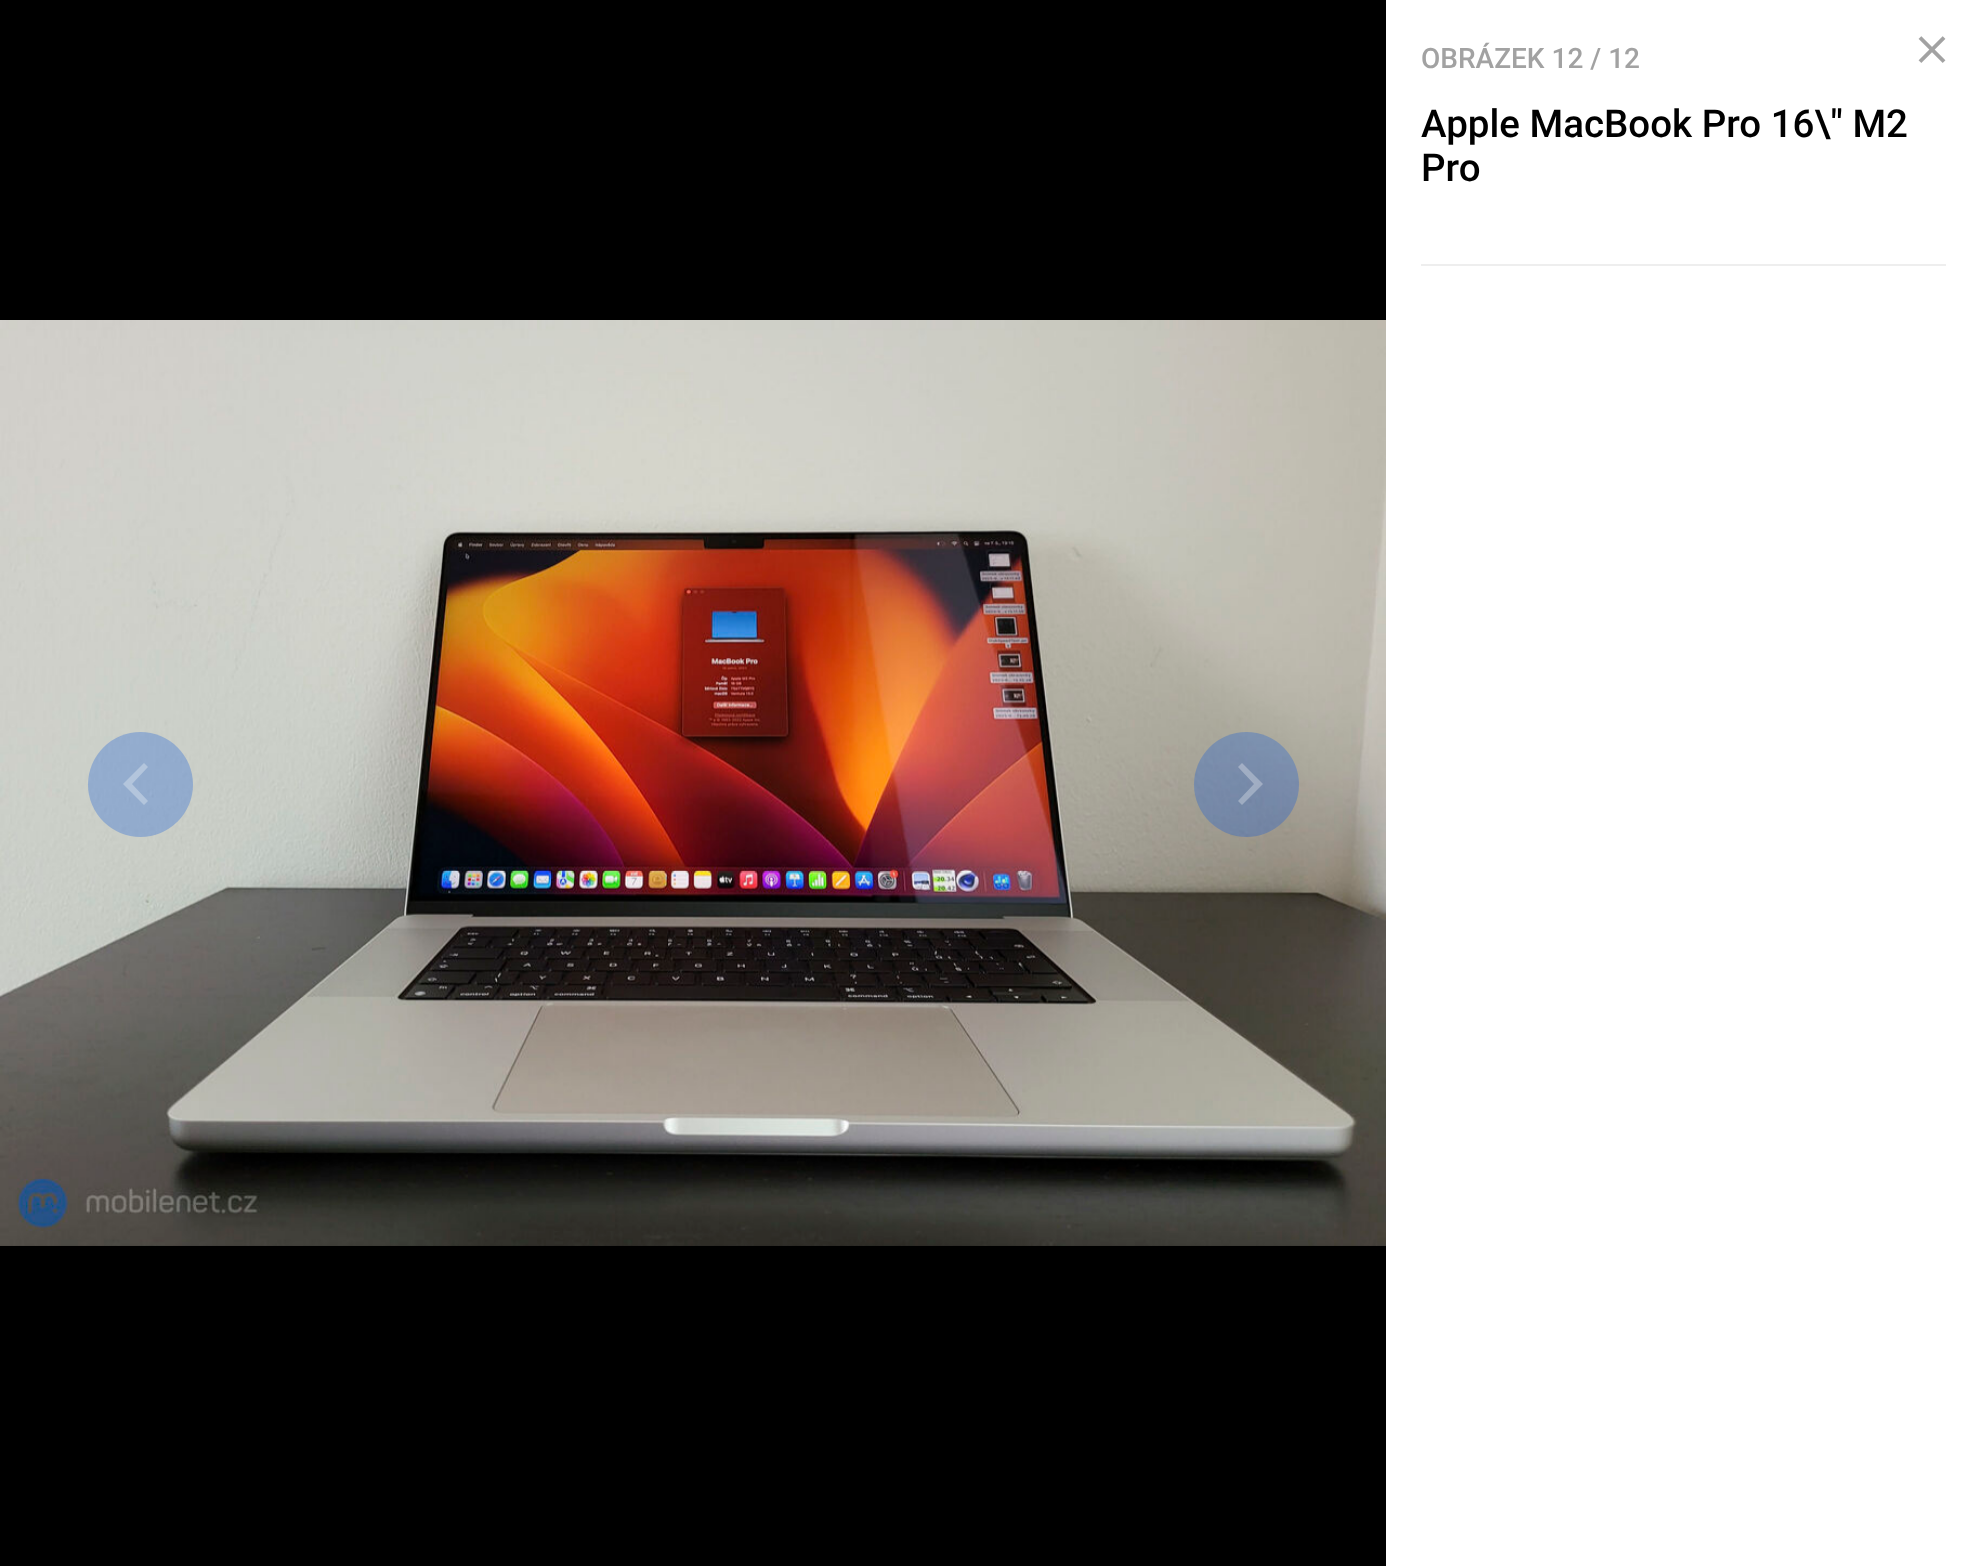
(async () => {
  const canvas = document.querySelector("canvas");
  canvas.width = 1980;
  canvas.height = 1566;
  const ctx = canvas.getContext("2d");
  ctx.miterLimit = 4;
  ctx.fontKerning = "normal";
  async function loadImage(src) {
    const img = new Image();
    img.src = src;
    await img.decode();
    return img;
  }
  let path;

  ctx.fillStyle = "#000000";
  ctx.fillRect(0, 0, 1980, 1566);
  ctx.fillStyle = "#ffffff";
  ctx.fillRect(1386, 0, 594, 1566);
  ctx.fillStyle = "#eeeeee";
  ctx.fillRect(1421, 264, 525, 2);
  ctx.drawImage(await loadImage("img/1.png"), 1918, 36, 28, 27);
  ctx.drawImage(await loadImage("img/2.png"), 0, 320, 1386, 926);
  ctx.fillStyle = "rgba(15, 88, 217, 0.3)";
  ctx.beginPath();
  ctx.arc(140.5, 784.5, 52.5, 0, Math.PI * 2);
  ctx.fill();
  ctx.fillStyle = "#b3c5dc";
  path = new Path2D("M123 784L144 805L148 801L132 784L148 767L144 763Z");
  ctx.fill(path);
  ctx.fillStyle = "rgba(15, 88, 217, 0.3)";
  ctx.beginPath();
  ctx.arc(1246.5, 784.5, 52.5, 0, Math.PI * 2);
  ctx.fill();
  ctx.fillStyle = "rgba(255, 255, 255, 0.3)";
  path = new Path2D("M1263 784L1242 763L1238 767L1254 784L1238 801L1242 805Z");
  ctx.fill(path);
  ctx.font = "500 28px Roboto";
  ctx.fillStyle = "#a2a2a2";
  ctx.fillText("OBRÁZEK 12 / 12", 1421, 68);
  ctx.font = "500 38.5px Roboto";
  ctx.fillStyle = "#000000";
  ctx.fillText("Apple MacBook Pro 16\\\" M2", 1421, 137);
  ctx.fillText("Pro", 1421, 181);
})();
